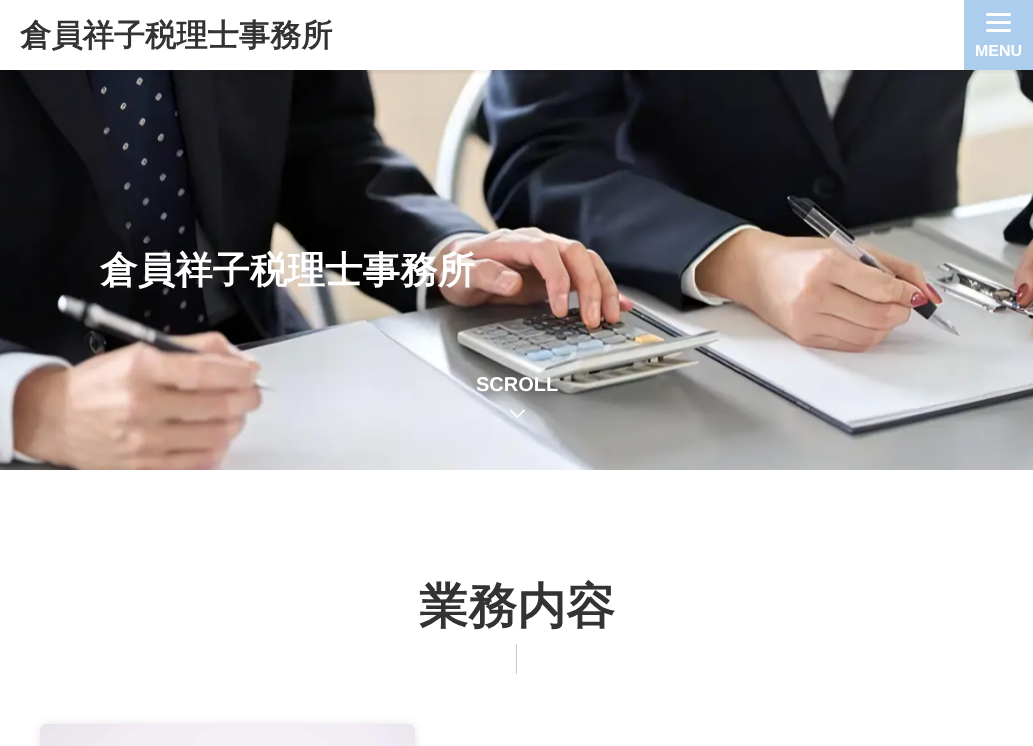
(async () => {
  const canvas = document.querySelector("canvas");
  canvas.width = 1033;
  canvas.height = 746;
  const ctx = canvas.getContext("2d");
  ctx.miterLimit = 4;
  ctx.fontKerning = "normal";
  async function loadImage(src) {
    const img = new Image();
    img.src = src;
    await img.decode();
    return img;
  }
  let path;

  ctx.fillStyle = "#ffffff";
  ctx.fillRect(0, 0, 1033, 746);
  ctx.drawImage(await loadImage("img/1.png"), 0, 70, 1033, 400);
  ctx.save();
  ctx.beginPath();
  ctx.rect(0, 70, 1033, 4);
  ctx.clip();
  ctx.fillStyle = "rgba(0, 0, 0, 0.1)";
  ctx.filter = "blur(5px)";
  ctx.beginPath();
  ctx.rect(0, 0, 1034, 70);
  ctx.fill();
  ctx.filter = "none";
  ctx.restore();
  ctx.fillStyle = "#adcdec";
  ctx.fillRect(964, 0, 69, 70);
  ctx.fillStyle = "#ffffff";
  ctx.beginPath();
  ctx.roundRect(986, 21, 25, 3, 1.5);
  ctx.fill();
  ctx.beginPath();
  ctx.roundRect(986, 13, 25, 3, 1.5);
  ctx.fill();
  ctx.beginPath();
  ctx.roundRect(986, 29, 25, 3, 1.5);
  ctx.fill();
  path = new Path2D("M511 410.5L517.5 417L524 410.5");
  ctx.strokeStyle = "#ffffff";
  ctx.lineWidth = 1.6;
  ctx.lineCap = "square";
  ctx.lineJoin = "round";
  ctx.stroke(path);
  ctx.fillStyle = "#cacaca";
  ctx.fillRect(516, 644, 1, 30);
  ctx.fillStyle = "rgba(0, 0, 0, 0.1)";
  ctx.filter = "blur(5px)";
  ctx.beginPath();
  ctx.roundRect(40, 724, 375, 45, 8);
  ctx.fill();
  ctx.filter = "none";
  ctx.drawImage(await loadImage("img/2.png"), 40, 724, 375, 22);
  ctx.font = "bold 31.25px WenQuanYi Zen Hei";
  ctx.fillStyle = "#333333";
  ctx.fillText("倉員祥子税理士事務所", 20, 46);
  ctx.font = "bold 16px Liberation Sans";
  ctx.fillStyle = "#ffffff";
  ctx.fillText("MENU", 975, 56);
  ctx.font = "bold 37.5px WenQuanYi Zen Hei";
  ctx.fillText("倉員祥子税理士事務所", 100, 283);
  ctx.font = "bold 20px Liberation Sans";
  ctx.fillText("SCROLL", 476, 391);
  ctx.font = "bold 49px WenQuanYi Zen Hei";
  ctx.fillStyle = "#333333";
  ctx.fillText("業務内容", 419, 623);
})();
